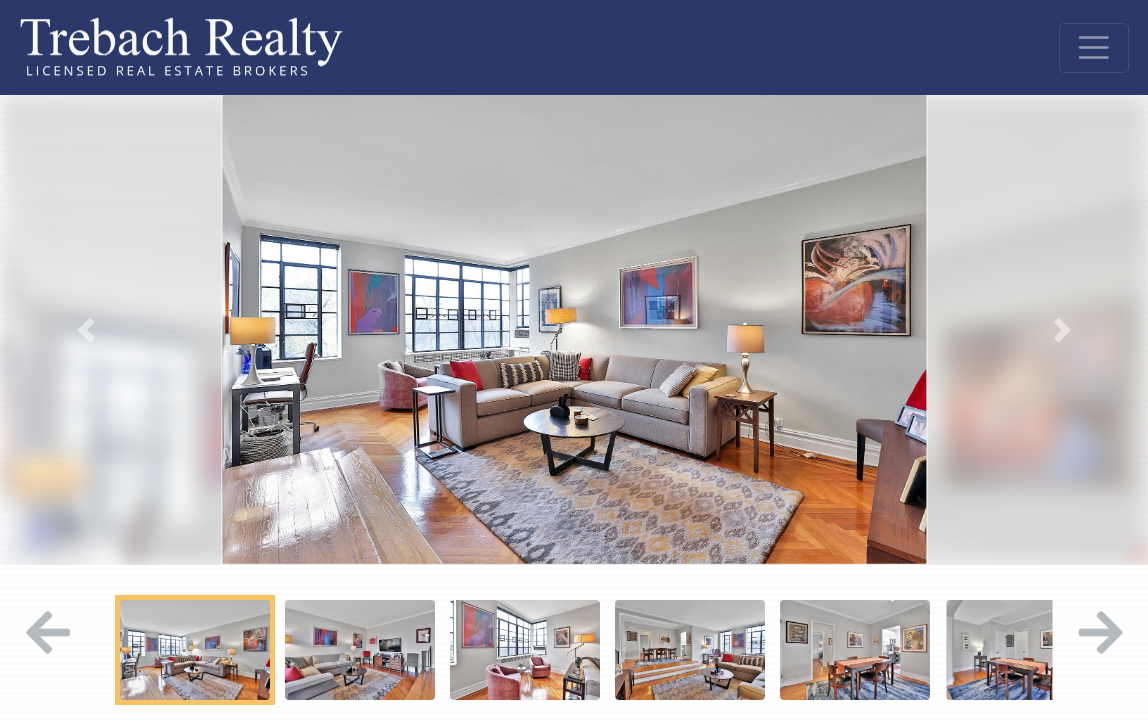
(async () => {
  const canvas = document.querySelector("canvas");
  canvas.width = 1148;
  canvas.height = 725;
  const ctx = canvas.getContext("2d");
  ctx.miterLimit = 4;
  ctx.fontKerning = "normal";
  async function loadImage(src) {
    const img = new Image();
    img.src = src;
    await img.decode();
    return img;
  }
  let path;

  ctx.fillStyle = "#ffffff";
  ctx.fillRect(0, 0, 1148, 725);
  ctx.drawImage(await loadImage("img/1.png"), 0, 0, 1148, 720);
  ctx.drawImage(await loadImage("img/3.png"), 0, 93, 1148, 472);
  ctx.strokeStyle = "rgba(255, 255, 255, 0.5)";
  ctx.strokeRect(221.5, 94.5, 706, 470);
  ctx.drawImage(await loadImage("img/4.png"), 222, 94, 705, 471);
  ctx.fillStyle = "rgba(39, 52, 103, 0.98)";
  ctx.fillRect(0, 0, 1148, 95);
  ctx.drawImage(await loadImage("img/2.png"), 20, 17, 323, 60);
  ctx.beginPath();
  ctx.roundRect(1059.5, 23.5, 69, 49, 4.5);
  ctx.strokeStyle = "#404c79";
  ctx.stroke();
  path = new Path2D("M1080 37.5H1107.5M1080 47.5H1107.5M1080 57.5H1107.5");
  ctx.strokeStyle = "#939ab3";
  ctx.lineWidth = 2.5;
  ctx.lineCap = "round";
  ctx.stroke(path);
  ctx.fillStyle = "rgba(255, 255, 255, 0.5)";
  path = new Path2D("M90 317.5L77.5 330L90 342.5L95 338L87 330L95 322Z");
  ctx.fill(path);
  path = new Path2D("M1058.5 317.5L1054 322L1061.5 330L1054 338L1058.5 342.5L1071 330Z");
  ctx.fill(path);
  ctx.drawImage(await loadImage("img/5.png"), 26, 611, 45, 43);
  ctx.fillStyle = "#f8c365";
  ctx.fillRect(115, 595, 160, 110);
  ctx.drawImage(await loadImage("img/6.png"), 120, 600, 150, 100);
  ctx.drawImage(await loadImage("img/7.png"), 285, 600, 150, 100);
  ctx.drawImage(await loadImage("img/8.png"), 450, 600, 150, 100);
  ctx.drawImage(await loadImage("img/9.png"), 615, 600, 150, 100);
  ctx.drawImage(await loadImage("img/10.png"), 780, 600, 150, 100);
  ctx.drawImage(await loadImage("img/11.png"), 946, 600, 107, 100);
  ctx.drawImage(await loadImage("img/12.png"), 1078, 611, 45, 43);
})();
